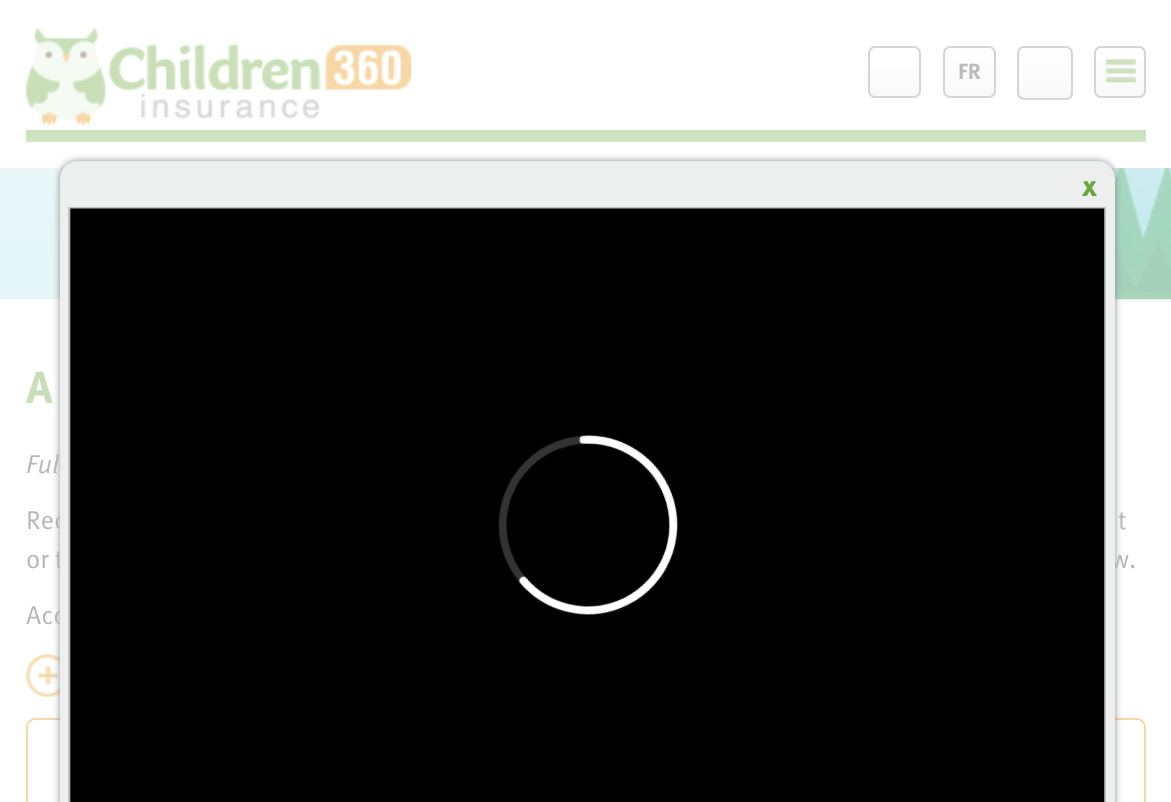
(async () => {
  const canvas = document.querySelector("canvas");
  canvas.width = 1171;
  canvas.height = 802;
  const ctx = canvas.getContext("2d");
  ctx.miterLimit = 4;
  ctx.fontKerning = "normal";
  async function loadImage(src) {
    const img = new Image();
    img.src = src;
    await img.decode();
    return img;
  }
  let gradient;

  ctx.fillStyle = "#ffffff";
  ctx.fillRect(0, 0, 1171, 802);
  ctx.drawImage(await loadImage("img/1.png"), 26, 27, 386, 100);
  gradient = ctx.createLinearGradient(894, 47, 894, 96);
  gradient.addColorStop(0, "#ffffff");
  gradient.addColorStop(1, "#f9f9f9");
  ctx.fillStyle = gradient;
  ctx.fillRect(870, 67, 49, 29);
  ctx.beginPath();
  ctx.roundRect(869, 47, 51, 50, 6);
  ctx.strokeStyle = "#d5d5d6";
  ctx.lineWidth = 2;
  ctx.stroke();
  ctx.save();
  ctx.beginPath();
  ctx.roundRect(943, 46, 53, 52, 7);
  ctx.clip();
  gradient = ctx.createLinearGradient(970, 47, 970, 96);
  gradient.addColorStop(0, "#ffffff");
  gradient.addColorStop(1, "#f9f9f9");
  ctx.fillStyle = gradient;
  ctx.fillRect(943, 47, 53, 49);
  ctx.restore();
  ctx.beginPath();
  ctx.roundRect(944, 47, 51, 50, 6);
  ctx.stroke();
  ctx.save();
  ctx.beginPath();
  ctx.roundRect(1017, 46, 56, 54, 7);
  ctx.clip();
  gradient = ctx.createLinearGradient(1045, 47, 1045, 98);
  gradient.addColorStop(0, "#ffffff");
  gradient.addColorStop(1, "#f9f9f9");
  ctx.fillStyle = gradient;
  ctx.fillRect(1017, 47, 56, 51);
  ctx.restore();
  ctx.beginPath();
  ctx.roundRect(1018, 47, 54, 52, 6);
  ctx.stroke();
  ctx.drawImage(await loadImage("img/2.png"), 1095, 59, 50, 38);
  ctx.beginPath();
  ctx.roundRect(1095, 47, 50, 50, 6);
  ctx.stroke();
  gradient = ctx.createLinearGradient(586, 129, 586, 142);
  gradient.addColorStop(0, "#c9dfb9");
  gradient.addColorStop(1, "#d4e6c7");
  ctx.fillStyle = gradient;
  ctx.fillRect(26, 130, 1120, 12);
  ctx.drawImage(await loadImage("img/3.png"), 0, 168, 1171, 132);
  ctx.drawImage(await loadImage("img/4.png"), 26, 654, 34, 43);
  ctx.beginPath();
  ctx.roundRect(27, 719, 1118, 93, 8);
  ctx.strokeStyle = "#f7d7a5";
  ctx.stroke();
  ctx.fillStyle = "#898b8e";
  ctx.filter = "blur(3.5px)";
  ctx.beginPath();
  ctx.roundRect(60, 161, 1055, 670, 18);
  ctx.fill();
  ctx.filter = "none";
  ctx.font = "bold 22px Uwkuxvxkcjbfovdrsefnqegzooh";
  ctx.fillStyle = "#bcbcbd";
  ctx.fillText("FR", 958, 79);
  ctx.font = "bold 45px Uwkuxvxkcjbfovdrsefnqegzooh";
  ctx.fillStyle = "#c9dfb9";
  ctx.fillText("A", 26, 403);
  ctx.font = "26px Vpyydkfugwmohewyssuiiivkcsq";
  ctx.fillStyle = "#b6b6b6";
  ctx.fillText("Ful", 26, 473);
  ctx.font = "26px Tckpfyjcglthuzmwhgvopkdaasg";
  for (const [text, x, y] of [
    ["Rec", 26, 529],
    ["t", 1118, 529],
    ["or t", 26, 568],
    ["w.", 1111, 568],
    ["Acc", 26, 624],
  ]) {
    ctx.fillText(text, x, y);
  }
  ctx.fillStyle = "#edeeee";
  ctx.beginPath();
  ctx.roundRect(60, 161, 1055, 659, 18);
  ctx.fill();
  ctx.font = "bold 29px Uwkuxvxkcjbfovdrsefnqegzooh";
  ctx.fillStyle = "#69a73d";
  ctx.fillText("x", 1082, 196);
  ctx.strokeStyle = "#c4c5c6";
  ctx.strokeRect(69, 208, 1036, 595);
  ctx.drawImage(await loadImage("img/5.png"), 69, 207, 1036, 595);
})();
